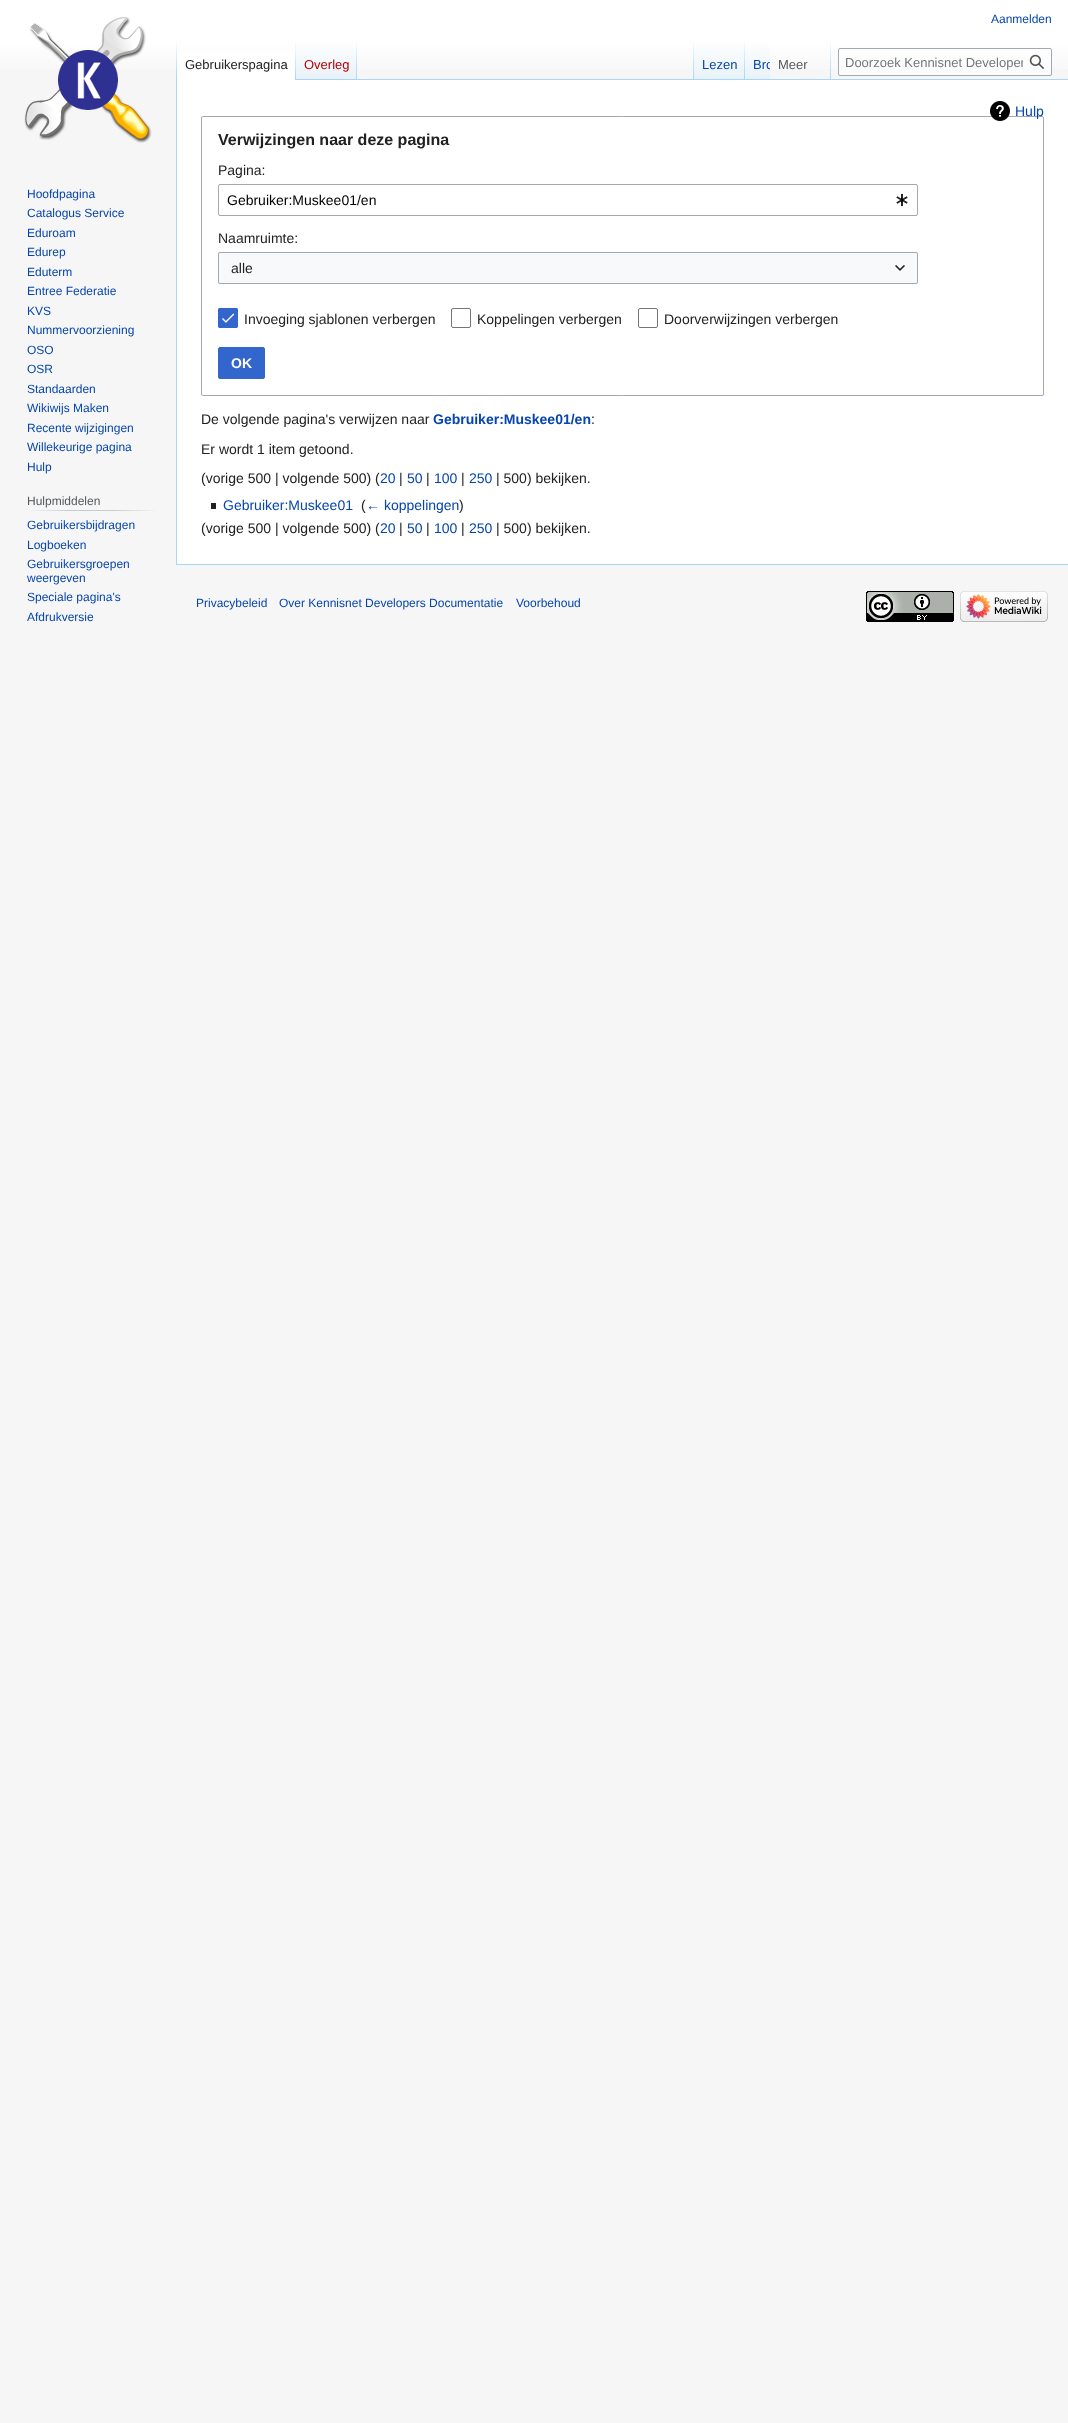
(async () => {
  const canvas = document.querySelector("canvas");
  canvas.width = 1068;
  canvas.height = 2423;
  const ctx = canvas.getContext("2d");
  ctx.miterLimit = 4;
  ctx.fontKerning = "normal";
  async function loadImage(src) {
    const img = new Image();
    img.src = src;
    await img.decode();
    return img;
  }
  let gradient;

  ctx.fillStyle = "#f6f6f6";
  ctx.fillRect(0, 0, 1068, 2423);
  gradient = ctx.createLinearGradient(534, 0, 534, 80);
  gradient.addColorStop(0.5, "#ffffff");
  gradient.addColorStop(1, "#f6f6f6");
  ctx.fillStyle = gradient;
  ctx.fillRect(0, 0, 1068, 69);
  ctx.fillStyle = "#a7d7f9";
  ctx.fillRect(176, 564, 892, 1);
  ctx.fillRect(176, 79, 1, 486);
  gradient = ctx.createLinearGradient(177, 40, 177, 80);
  gradient.addColorStop(0, "rgba(167, 215, 249, 0)");
  gradient.addColorStop(1, "#a7d7f9");
  ctx.fillStyle = gradient;
  ctx.fillRect(176, 40, 1, 40);
  ctx.fillStyle = "#ffffff";
  ctx.fillRect(177, 51, 118, 29);
  gradient = ctx.createLinearGradient(296, 40, 296, 80);
  gradient.addColorStop(0, "#ffffff");
  gradient.addColorStop(1, "#a7d7f9");
  ctx.fillStyle = gradient;
  ctx.fillRect(295, 40, 1, 40);
  gradient = ctx.createLinearGradient(327, 80, 327, 40);
  gradient.addColorStop(0, "#77c1f6");
  gradient.addColorStop(0.03, "#e8f2f8");
  gradient.addColorStop(1, "#ffffff");
  ctx.fillStyle = gradient;
  ctx.fillRect(296, 46, 61, 34);
  gradient = ctx.createLinearGradient(357, 40, 357, 80);
  gradient.addColorStop(0, "rgba(167, 215, 249, 0)");
  gradient.addColorStop(1, "#a7d7f9");
  ctx.fillStyle = gradient;
  ctx.fillRect(356, 40, 1, 40);
  ctx.fillStyle = "#a7d7f9";
  ctx.fillRect(357, 79, 711, 1);
  gradient = ctx.createLinearGradient(694, 40, 694, 80);
  gradient.addColorStop(0, "rgba(167, 215, 249, 0)");
  gradient.addColorStop(1, "#a7d7f9");
  ctx.fillStyle = gradient;
  ctx.fillRect(693, 40, 1, 40);
  gradient = ctx.createLinearGradient(720, 80, 720, 40);
  gradient.addColorStop(0, "#77c1f6");
  gradient.addColorStop(0.03, "#e8f2f8");
  gradient.addColorStop(1, "#ffffff");
  ctx.fillStyle = gradient;
  ctx.fillRect(694, 46, 51, 33);
  gradient = ctx.createLinearGradient(745, 40, 745, 80);
  gradient.addColorStop(0, "rgba(167, 215, 249, 0)");
  gradient.addColorStop(1, "#a7d7f9");
  ctx.fillStyle = gradient;
  ctx.fillRect(744, 40, 1, 40);
  gradient = ctx.createLinearGradient(758, 80, 758, 40);
  gradient.addColorStop(0, "#77c1f6");
  gradient.addColorStop(0.03, "#e8f2f8");
  gradient.addColorStop(1, "#ffffff");
  ctx.fillStyle = gradient;
  ctx.fillRect(745, 46, 25, 33);
  gradient = ctx.createLinearGradient(831, 40, 831, 80);
  gradient.addColorStop(0, "rgba(167, 215, 249, 0)");
  gradient.addColorStop(1, "#a7d7f9");
  ctx.fillStyle = gradient;
  ctx.fillRect(830, 40, 1, 40);
  ctx.fillStyle = "rgba(255, 255, 255, 0.5)";
  ctx.beginPath();
  ctx.roundRect(838.5, 48.5, 213, 27, 1.5);
  ctx.fill();
  ctx.strokeStyle = "#a2a9b1";
  ctx.stroke();
  ctx.drawImage(await loadImage("img/1.png"), 1029, 54, 15, 15);
  ctx.drawImage(await loadImage("img/2.png"), 24, 17, 128, 126);
  gradient = ctx.createLinearGradient(27, 511, 158, 511);
  gradient.addColorStop(0, "#f6f6f6");
  gradient.addColorStop(0.33, "#c8ccd1");
  gradient.addColorStop(0.66, "#c8ccd1");
  gradient.addColorStop(1, "#f6f6f6");
  ctx.fillStyle = gradient;
  ctx.fillRect(27, 510, 131, 1);
  ctx.fillStyle = "#ffffff";
  ctx.fillRect(177, 80, 891, 484);
  ctx.beginPath();
  ctx.roundRect(201.5, 116.5, 842, 279, 1.5);
  ctx.stroke();
  ctx.drawImage(await loadImage("img/3.png"), 990, 101, 20, 20);
  ctx.beginPath();
  ctx.roundRect(218.5, 184.5, 699, 31, 1.5);
  ctx.stroke();
  ctx.drawImage(await loadImage("img/4.png"), 896, 194, 12, 12);
  ctx.fillStyle = "#f8f9fa";
  ctx.fillRect(218, 252, 700, 32);
  ctx.beginPath();
  ctx.roundRect(218.5, 252.5, 699, 31, 1.5);
  ctx.stroke();
  ctx.drawImage(await loadImage("img/5.png"), 895, 265, 10, 6);
  ctx.fillStyle = "#3366cc";
  ctx.beginPath();
  ctx.roundRect(218, 308, 20, 20, 2);
  ctx.fill();
  ctx.drawImage(await loadImage("img/6.png"), 222, 313, 13, 10);
  ctx.beginPath();
  ctx.roundRect(218.5, 308.5, 19, 19, 1.5);
  ctx.strokeStyle = "#3366cc";
  ctx.stroke();
  ctx.beginPath();
  ctx.roundRect(451.5, 308.5, 19, 19, 1.5);
  ctx.strokeStyle = "#72777d";
  ctx.stroke();
  ctx.beginPath();
  ctx.roundRect(638.5, 308.5, 19, 19, 1.5);
  ctx.stroke();
  ctx.beginPath();
  ctx.roundRect(218.5, 347.5, 46, 31, 1.5);
  ctx.fill();
  ctx.strokeStyle = "#3366cc";
  ctx.stroke();
  ctx.fillStyle = "#202122";
  ctx.fillRect(211, 503, 5, 6);
  ctx.drawImage(await loadImage("img/7.png"), 866, 591, 88, 31);
  ctx.drawImage(await loadImage("img/8.png"), 960, 591, 88, 31);
  ctx.font = "12px Liberation Sans";
  ctx.fillStyle = "#0645ad";
  ctx.fillText("Aanmelden", 991, 23);
  ctx.font = "13px Liberation Sans";
  ctx.fillStyle = "#202122";
  ctx.fillText("Gebruikerspagina", 185, 69);
  ctx.fillStyle = "#ba0000";
  ctx.fillText("Overleg", 304, 69);
  ctx.fillStyle = "#0645ad";
  ctx.fillText("Lezen", 702, 69);
  ctx.save();
  ctx.beginPath();
  ctx.rect(745, 40, 25, 40);
  ctx.clip();
  ctx.fillText("Bro", 753, 69);
  ctx.restore();
  ctx.fillStyle = "#54595d";
  ctx.fillText("Meer", 778, 69);
  ctx.save();
  ctx.beginPath();
  ctx.rect(845, 55, 178, 15);
  ctx.clip();
  ctx.fillStyle = "#72777d";
  ctx.fillText("Doorzoek Kennisnet Developer", 845, 67);
  ctx.restore();
  ctx.font = "12px Liberation Sans";
  ctx.fillStyle = "#0645ad";
  for (const [text, x, y] of [
    ["Hoofdpagina", 27, 198],
    ["Catalogus Service", 27, 217],
    ["Eduroam", 27, 237],
    ["Edurep", 27, 256],
    ["Eduterm", 27, 276],
    ["Entree Federatie", 27, 295],
    ["KVS", 27, 315],
    ["Nummervoorziening", 27, 334],
    ["OSO", 27, 354],
    ["OSR", 27, 373],
    ["Standaarden", 27, 393],
    ["Wikiwijs Maken", 27, 412],
    ["Recente wijzigingen", 27, 432],
    ["Willekeurige pagina", 27, 451],
    ["Hulp", 27, 471],
  ]) {
    ctx.fillText(text, x, y);
  }
  ctx.fillStyle = "#54595d";
  ctx.fillText("Hulpmiddelen", 27, 505);
  ctx.fillStyle = "#0645ad";
  for (const [text, x, y] of [
    ["Gebruikersbijdragen", 27, 529],
    ["Logboeken", 27, 549],
    ["Gebruikersgroepen", 27, 568],
    ["weergeven", 27, 582],
    ["Speciale pagina's", 27, 601],
    ["Afdrukversie", 27, 621],
  ]) {
    ctx.fillText(text, x, y);
  }
  ctx.font = "14px Liberation Sans";
  ctx.fillText("Hulp", 1015, 116);
  ctx.font = "bold 16px Liberation Sans";
  ctx.fillStyle = "#202122";
  ctx.fillText("Verwijzingen naar deze pagina", 218, 145);
  ctx.font = "14px Liberation Sans";
  ctx.fillText("Pagina:", 218, 175);
  ctx.fillStyle = "#000000";
  ctx.fillText("Gebruiker:Muskee01/en", 227, 205);
  ctx.fillStyle = "#202122";
  for (const [text, x, y] of [
    ["Naamruimte:", 218, 243],
    ["alle", 231, 273],
    ["Invoeging sjablonen verbergen", 244, 324],
    ["Koppelingen verbergen", 477, 324],
    ["Doorverwijzingen verbergen", 664, 324],
  ]) {
    ctx.fillText(text, x, y);
  }
  ctx.font = "bold 14px Liberation Sans";
  ctx.fillStyle = "#ffffff";
  ctx.fillText("OK", 231, 368);
  ctx.font = "14px Liberation Sans";
  ctx.fillStyle = "#202122";
  ctx.fillText("De volgende pagina's verwijzen naar", 201, 424);
  ctx.font = "bold 14px Liberation Sans";
  ctx.fillStyle = "#0645ad";
  ctx.fillText("Gebruiker:Muskee01/en", 433, 424);
  ctx.font = "14px Liberation Sans";
  ctx.fillStyle = "#202122";
  for (const [text, x, y] of [
    [":", 591, 424],
    ["Er wordt 1 item getoond.", 201, 454],
    ["(vorige 500 | volgende 500) (", 201, 483],
  ]) {
    ctx.fillText(text, x, y);
  }
  ctx.fillStyle = "#0645ad";
  ctx.fillText("20", 380, 483);
  ctx.fillStyle = "#202122";
  ctx.fillText("|", 399, 483);
  ctx.fillStyle = "#0645ad";
  ctx.fillText("50", 407, 483);
  ctx.fillStyle = "#202122";
  ctx.fillText("|", 426, 483);
  ctx.fillStyle = "#0645ad";
  ctx.fillText("100", 434, 483);
  ctx.fillStyle = "#202122";
  ctx.fillText("|", 461, 483);
  ctx.fillStyle = "#0645ad";
  ctx.fillText("250", 469, 483);
  ctx.fillStyle = "#202122";
  ctx.fillText("| 500) bekijken.", 496, 483);
  ctx.fillStyle = "#0645ad";
  ctx.fillText("Gebruiker:Muskee01", 223, 510);
  ctx.fillStyle = "#202122";
  ctx.fillText("(", 361, 510);
  ctx.fillStyle = "#0645ad";
  ctx.fillText("← koppelingen", 366, 510);
  ctx.fillStyle = "#202122";
  ctx.fillText(")", 459, 510);
  ctx.fillText("(vorige 500 | volgende 500) (", 201, 533);
  ctx.fillStyle = "#0645ad";
  ctx.fillText("20", 380, 533);
  ctx.fillStyle = "#202122";
  ctx.fillText("|", 399, 533);
  ctx.fillStyle = "#0645ad";
  ctx.fillText("50", 407, 533);
  ctx.fillStyle = "#202122";
  ctx.fillText("|", 426, 533);
  ctx.fillStyle = "#0645ad";
  ctx.fillText("100", 434, 533);
  ctx.fillStyle = "#202122";
  ctx.fillText("|", 461, 533);
  ctx.fillStyle = "#0645ad";
  ctx.fillText("250", 469, 533);
  ctx.fillStyle = "#202122";
  ctx.fillText("| 500) bekijken.", 496, 533);
  ctx.font = "12px Liberation Sans";
  ctx.fillStyle = "#0645ad";
  for (const [text, x, y] of [
    ["Privacybeleid", 196, 607],
    ["Over Kennisnet Developers Documentatie", 279, 607],
    ["Voorbehoud", 516, 607],
  ]) {
    ctx.fillText(text, x, y);
  }
})();
